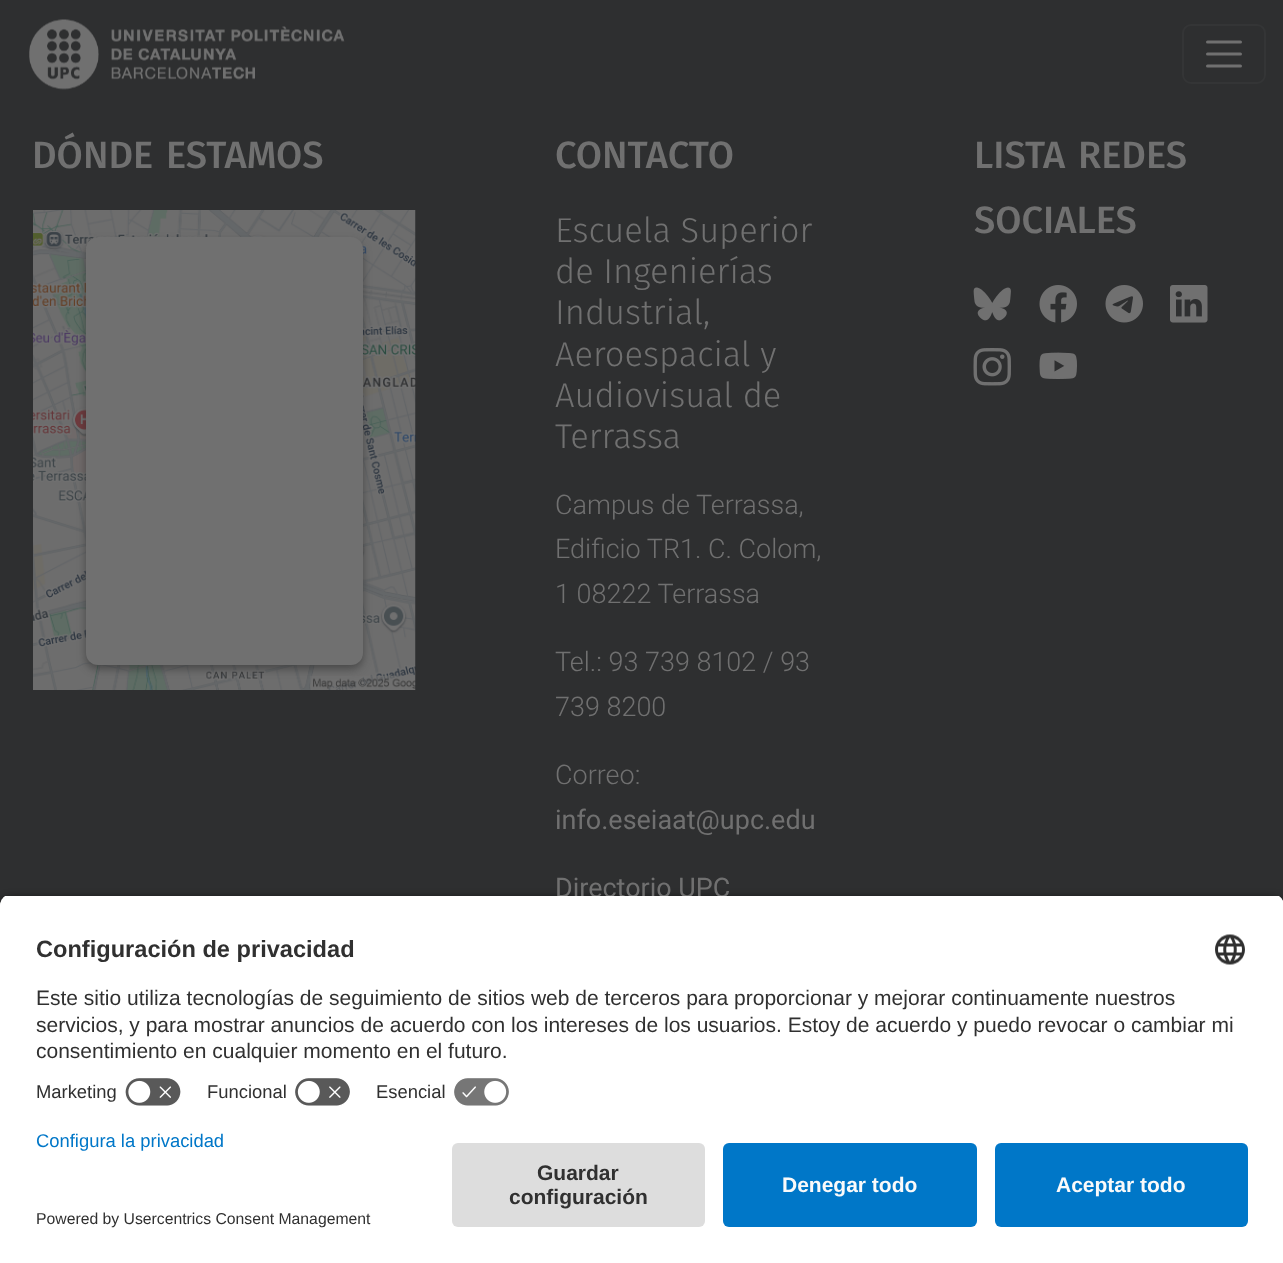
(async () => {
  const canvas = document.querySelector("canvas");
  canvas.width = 1283;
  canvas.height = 1263;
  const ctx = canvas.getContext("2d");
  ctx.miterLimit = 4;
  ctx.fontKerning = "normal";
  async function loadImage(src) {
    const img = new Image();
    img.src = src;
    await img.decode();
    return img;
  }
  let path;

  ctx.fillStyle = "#2e2f30";
  ctx.fillRect(0, 0, 1283, 1263);
  ctx.drawImage(await loadImage("img/1.png"), 29, 19, 316, 71);
  ctx.beginPath();
  ctx.roundRect(1183, 25, 82, 58, 8);
  ctx.strokeStyle = "#343536";
  ctx.lineWidth = 2;
  ctx.stroke();
  path = new Path2D("M1207.5 42H1240.5M1207.5 54H1240.5M1207.5 66H1240.5");
  ctx.strokeStyle = "#707070";
  ctx.lineWidth = 3;
  ctx.lineCap = "round";
  ctx.stroke(path);
  ctx.drawImage(await loadImage("img/2.png"), 33, 210, 383, 480);
  ctx.fillStyle = "rgba(36, 36, 36, 0.5)";
  ctx.filter = "blur(4.5px)";
  ctx.beginPath();
  ctx.roundRect(86, 242, 277, 427, 12);
  ctx.fill();
  ctx.filter = "none";
  ctx.fillStyle = "#707070";
  ctx.beginPath();
  ctx.roundRect(86, 237, 277, 428, 12);
  ctx.fill();
  ctx.drawImage(await loadImage("img/3.png"), 973, 287, 38, 34);
  ctx.drawImage(await loadImage("img/4.png"), 1039, 285, 38, 38);
  ctx.drawImage(await loadImage("img/5.png"), 1105, 285, 38, 38);
  ctx.drawImage(await loadImage("img/6.png"), 1170, 285, 38, 38);
  ctx.drawImage(await loadImage("img/7.png"), 973, 348, 38, 38);
  ctx.drawImage(await loadImage("img/8.png"), 1039, 352, 38, 27);
  ctx.fillStyle = "rgba(0, 0, 0, 0.8)";
  ctx.filter = "blur(5px)";
  ctx.beginPath();
  ctx.roundRect(0, 899, 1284, 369, 12);
  ctx.fill();
  ctx.filter = "none";
  ctx.fillStyle = "#ffffff";
  ctx.fillRect(0, 1131, 1283, 132);
  ctx.fillStyle = "#dddddd";
  ctx.beginPath();
  ctx.roundRect(452, 1143, 253, 84, 6);
  ctx.fill();
  ctx.fillStyle = "#0077c8";
  ctx.beginPath();
  ctx.roundRect(723, 1143, 254, 84, 6);
  ctx.fill();
  ctx.beginPath();
  ctx.roundRect(995, 1143, 253, 84, 6);
  ctx.fill();
  ctx.font = "500 38px Fira Sans";
  ctx.fillStyle = "#707070";
  for (const [text, x, y] of [
    ["DÓNDE", 32, 168],
    ["ESTAMOS", 166, 168],
    ["CONTACTO", 555, 168],
  ]) {
    ctx.fillText(text, x, y);
  }
  ctx.font = "300 34.5px Fira Sans";
  for (const [text, x, y] of [
    ["Escuela Superior", 555, 242],
    ["de Ingenierías", 555, 283],
    ["Industrial,", 555, 324],
    ["Aeroespacial y", 555, 366],
    ["Audiovisual de", 555, 407],
    ["Terrassa", 555, 448],
  ]) {
    ctx.fillText(text, x, y);
  }
  ctx.font = "300 27px Roboto";
  for (const [text, x, y] of [
    ["Campus de Terrassa,", 555, 514],
    ["Edificio TR1. C. Colom,", 555, 558],
    ["1 08222 Terrassa", 555, 603],
    ["Tel.: 93 739 8102 / 93", 555, 671],
    ["739 8200", 555, 716],
    ["Correo:", 555, 784],
  ]) {
    ctx.fillText(text, x, y);
  }
  ctx.font = "27px Roboto";
  ctx.fillText("info.eseiaat@upc.edu", 555, 829);
  ctx.fillText("Directorio UPC", 555, 897);
  ctx.font = "500 38px Fira Sans";
  for (const [text, x, y] of [
    ["LISTA", 974, 168],
    ["REDES", 1078, 168],
    ["SOCIALES", 974, 233],
  ]) {
    ctx.fillText(text, x, y);
  }
  ctx.save();
  path = new Path2D("M12 894H1272C1278.5 894 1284 899.5 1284 906V1131H0V906C0 899.5 5.5 894 12 894Z");
  ctx.clip(path);
  ctx.fillStyle = "#ffffff";
  ctx.fillRect(0, 896, 1283, 235);
  ctx.fillRect(0, 896, 1283, 175);
  ctx.restore();
  ctx.font = "bold 23.6px Liberation Sans";
  ctx.fillStyle = "#303030";
  ctx.fillText("Configuración de privacidad", 36, 957);
  ctx.drawImage(await loadImage("img/9.png"), 1215, 934, 30, 31);
  ctx.font = "21px Liberation Sans";
  for (const [text, x, y] of [
    ["Este sitio utiliza tecnologías de seguimiento de sitios web de terceros para proporcionar y mejorar continuamente nuestros", 36, 1005],
    ["servicios, y para mostrar anuncios de acuerdo con los intereses de los usuarios. Estoy de acuerdo y puedo revocar o cambiar mi", 36, 1032],
    ["consentimiento en cualquier momento en el futuro.", 36, 1058],
  ]) {
    ctx.fillText(text, x, y);
  }
  ctx.font = "18.4px Liberation Sans";
  ctx.fillText("Marketing", 36, 1098);
  ctx.drawImage(await loadImage("img/10.png"), 125, 1078, 56, 28);
  ctx.fillText("Funcional", 207, 1098);
  ctx.drawImage(await loadImage("img/11.png"), 295, 1078, 55, 28);
  ctx.fillText("Esencial", 376, 1098);
  ctx.drawImage(await loadImage("img/12.png"), 454, 1078, 55, 28);
  ctx.fillStyle = "#0077c8";
  ctx.fillText("Configura la privacidad", 36, 1147);
  ctx.font = "15.75px Liberation Sans";
  ctx.fillStyle = "#303030";
  ctx.fillText("Powered by Usercentrics Consent Management", 36, 1224);
  ctx.font = "bold 21px Liberation Sans";
  ctx.fillText("Guardar", 537, 1180);
  ctx.fillText("configuración", 509, 1204);
  ctx.fillStyle = "#fafafa";
  ctx.fillText("Denegar todo", 782, 1192);
  ctx.fillText("Aceptar todo", 1056, 1192);
})();
